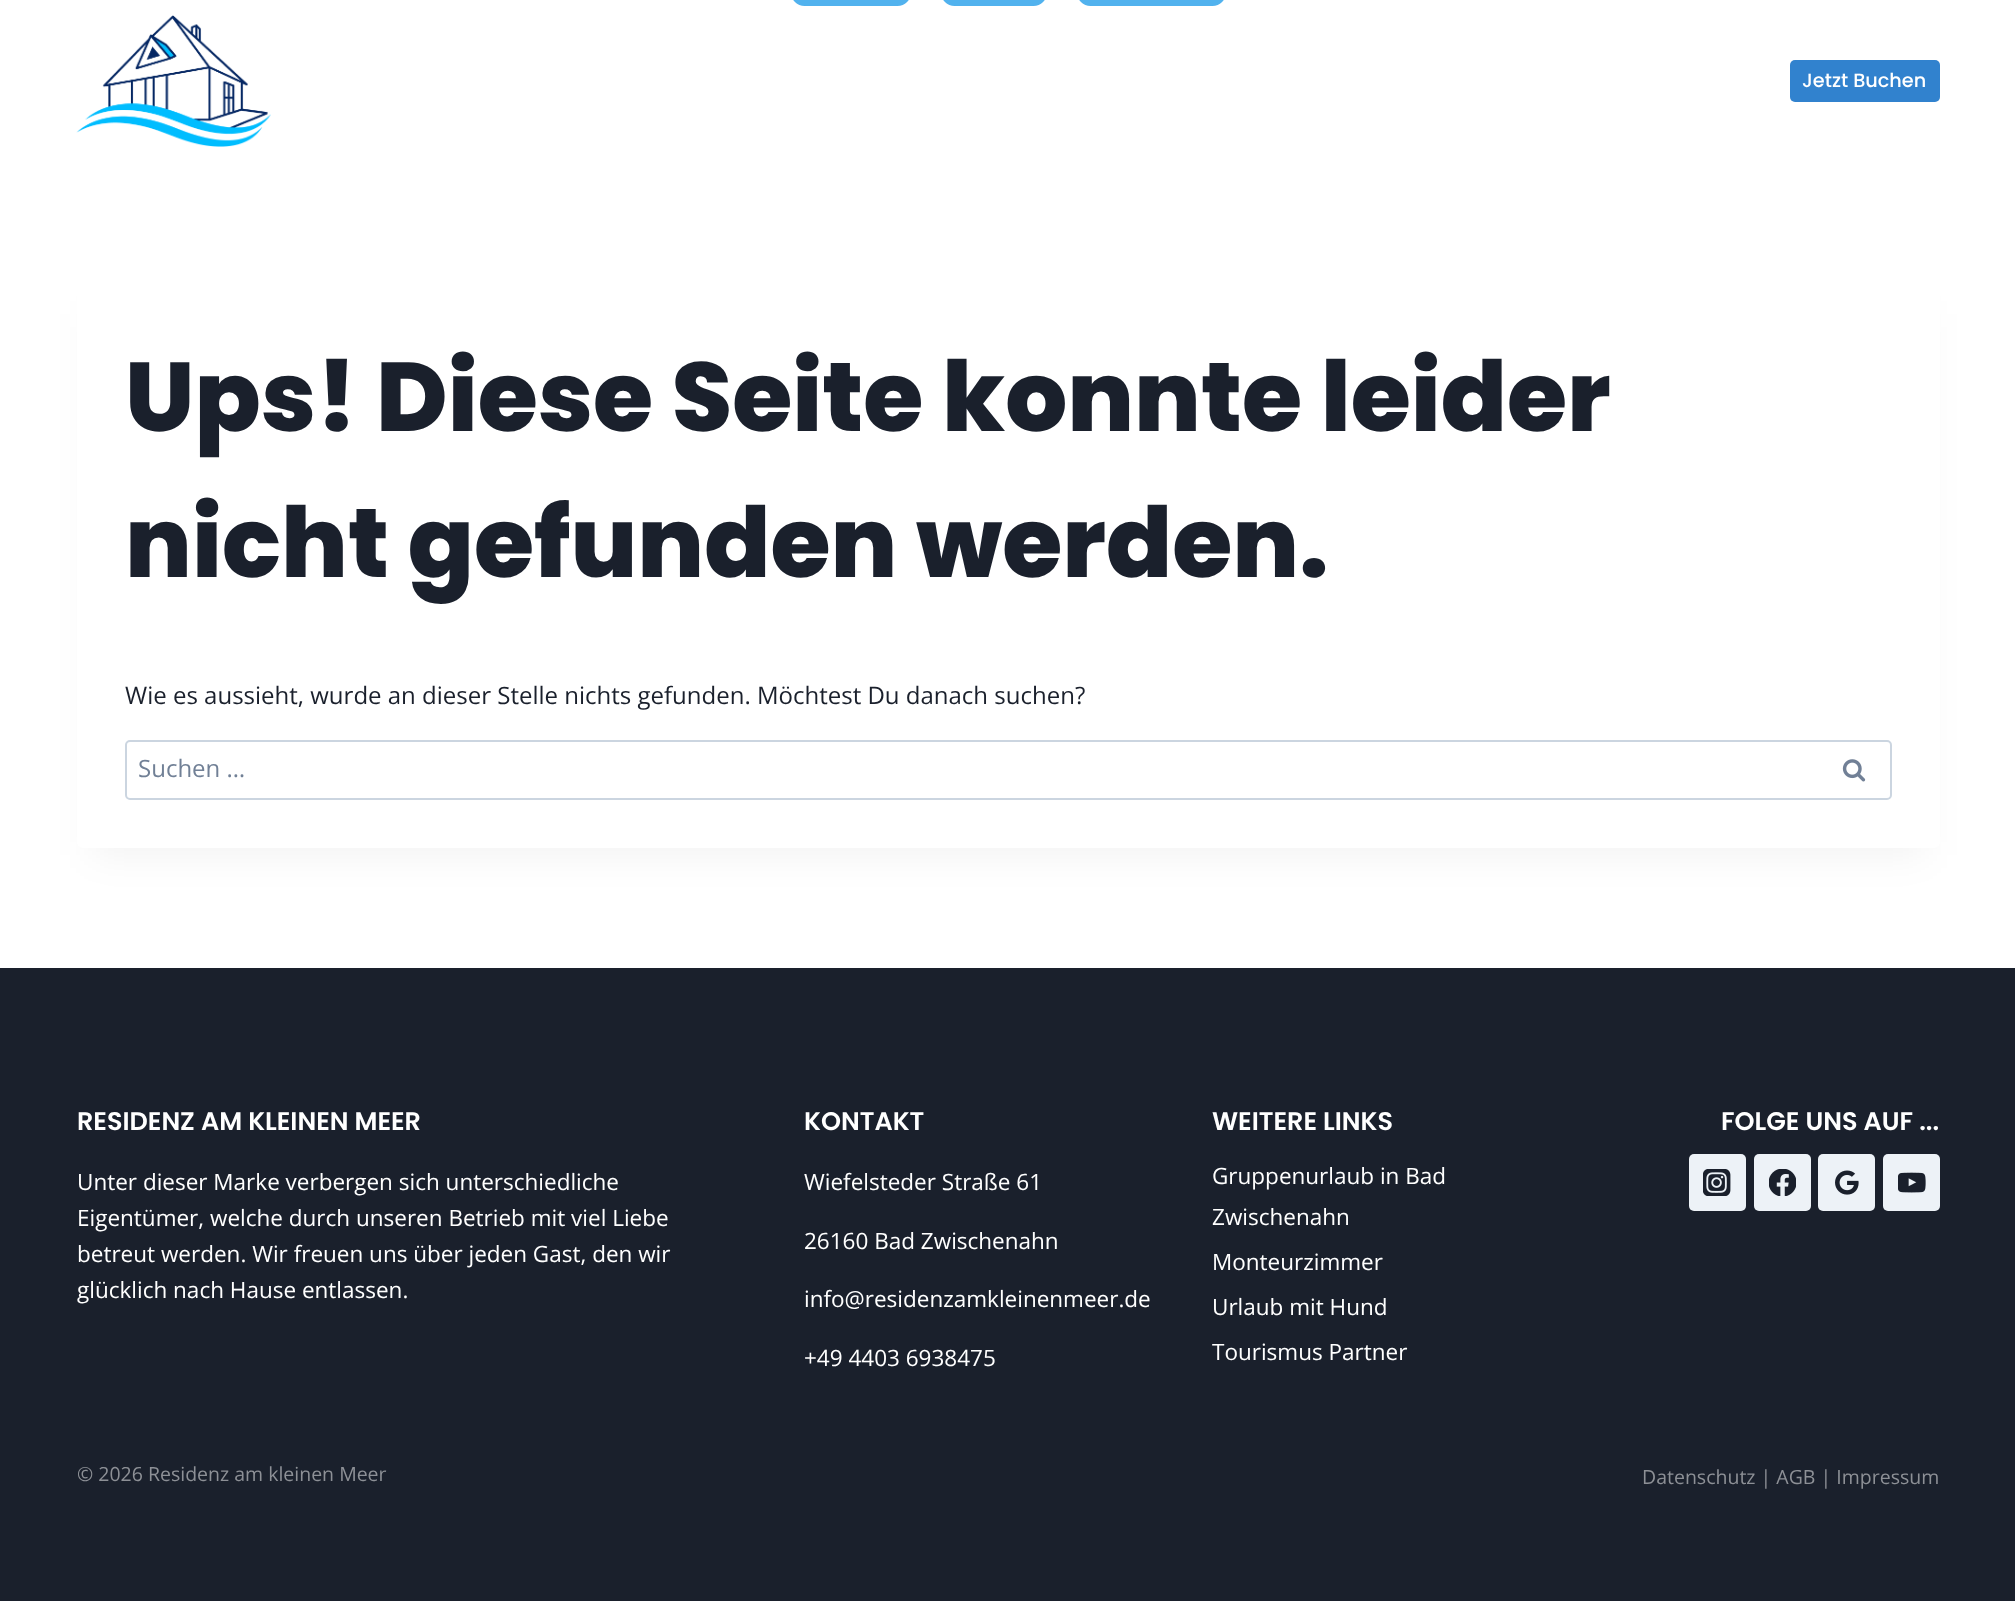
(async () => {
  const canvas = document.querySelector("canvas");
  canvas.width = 2015;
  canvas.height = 1601;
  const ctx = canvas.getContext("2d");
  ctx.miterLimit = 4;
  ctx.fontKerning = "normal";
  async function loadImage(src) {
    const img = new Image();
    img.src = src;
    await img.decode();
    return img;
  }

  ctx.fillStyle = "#ffffff";
  ctx.fillRect(0, 0, 2015, 1601);
  ctx.fillStyle = "#51b2ee";
  ctx.beginPath();
  ctx.roundRect(791, -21, 120, 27, 21);
  ctx.fill();
  ctx.beginPath();
  ctx.roundRect(941, -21, 106, 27, 21);
  ctx.fill();
  ctx.beginPath();
  ctx.roundRect(1077, -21, 149, 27, 21);
  ctx.fill();
  ctx.drawImage(await loadImage("img/1.png"), 76, 15, 195, 132);
  ctx.fillStyle = "#3182ce";
  ctx.beginPath();
  ctx.roundRect(1790, 60, 150, 42, 5);
  ctx.fill();
  ctx.fillStyle = "rgba(0, 0, 0, 0.05)";
  ctx.filter = "blur(19px)";
  ctx.beginPath();
  ctx.rect(92, 314, 1833, 541);
  ctx.fill();
  ctx.filter = "none";
  ctx.fillStyle = "#ffffff";
  ctx.beginPath();
  ctx.roundRect(77, 276, 1863, 572, 6);
  ctx.fill();
  ctx.beginPath();
  ctx.roundRect(126, 741, 1765, 58, 4);
  ctx.strokeStyle = "#cbd5e0";
  ctx.lineWidth = 2;
  ctx.stroke();
  ctx.drawImage(await loadImage("img/2.png"), 1842, 759, 24, 23);
  ctx.fillStyle = "#1a202c";
  ctx.fillRect(0, 968, 2015, 633);
  ctx.fillStyle = "#edf2f7";
  ctx.beginPath();
  ctx.roundRect(1689, 1154, 57, 57, 5);
  ctx.fill();
  ctx.drawImage(await loadImage("img/3.png"), 1703, 1169, 28, 27);
  ctx.beginPath();
  ctx.roundRect(1754, 1154, 57, 57, 5);
  ctx.fill();
  ctx.drawImage(await loadImage("img/4.png"), 1769, 1169, 27, 27);
  ctx.beginPath();
  ctx.roundRect(1818, 1154, 57, 57, 5);
  ctx.fill();
  ctx.drawImage(await loadImage("img/5.png"), 1835, 1170, 24, 25);
  ctx.beginPath();
  ctx.roundRect(1883, 1154, 57, 57, 5);
  ctx.fill();
  ctx.drawImage(await loadImage("img/6.png"), 1898, 1172, 28, 21);
  ctx.font = "500 19.25px Poppins";
  ctx.fillStyle = "#ffffff";
  ctx.fillText("Jetzt Buchen", 1802, 87);
  ctx.font = "800 97.5px Poppins";
  ctx.fillStyle = "#1a202c";
  ctx.fillText("Ups! Diese Seite konnte leider", 125, 431);
  ctx.fillText("nicht gefunden werden.", 125, 577);
  ctx.font = "24px Open Sans";
  ctx.fillText("Wie es aussieht, wurde an dieser Stelle nichts gefunden. Möchtest Du danach suchen?", 125, 704);
  ctx.fillStyle = "#718096";
  ctx.fillText("Suchen …", 138, 777);
  ctx.font = "600 25.5px Poppins";
  ctx.fillStyle = "#ffffff";
  ctx.fillText("RESIDENZ AM KLEINEN MEER", 77, 1130);
  ctx.font = "22.5px Open Sans";
  for (const [text, x, y] of [
    ["Unter dieser Marke verbergen sich unterschiedliche", 77, 1190],
    ["Eigentümer, welche durch unseren Betrieb mit viel Liebe", 77, 1226],
    ["betreut werden. Wir freuen uns über jeden Gast, den wir", 77, 1262],
    ["glücklich nach Hause entlassen.", 77, 1298],
  ]) {
    ctx.fillText(text, x, y);
  }
  ctx.font = "600 25.5px Poppins";
  ctx.fillText("KONTAKT", 804, 1130);
  ctx.font = "22.5px Open Sans";
  for (const [text, x, y] of [
    ["Wiefelsteder Straße 61", 804, 1190],
    ["26160 Bad Zwischenahn", 804, 1249],
    ["info@residenzamkleinenmeer.de", 804, 1307],
    ["+49 4403 6938475", 804, 1366],
  ]) {
    ctx.fillText(text, x, y);
  }
  ctx.font = "600 25.5px Poppins";
  ctx.fillText("WEITERE LINKS", 1212, 1130);
  ctx.font = "22.5px Open Sans";
  for (const [text, x, y] of [
    ["Gruppenurlaub in Bad", 1212, 1184],
    ["Zwischenahn", 1212, 1225],
    ["Monteurzimmer", 1212, 1270],
    ["Urlaub mit Hund", 1212, 1315],
    ["Tourismus Partner", 1212, 1360],
  ]) {
    ctx.fillText(text, x, y);
  }
  ctx.font = "600 25.5px Poppins";
  ctx.fillText("FOLGE UNS AUF ...", 1721, 1130);
  ctx.font = "19.5px Open Sans";
  ctx.fillStyle = "#8d9096";
  ctx.fillText("© 2026 Residenz am kleinen Meer", 77, 1481);
  ctx.fillText("Datenschutz | AGB | Impressum", 1642, 1484);
})();
